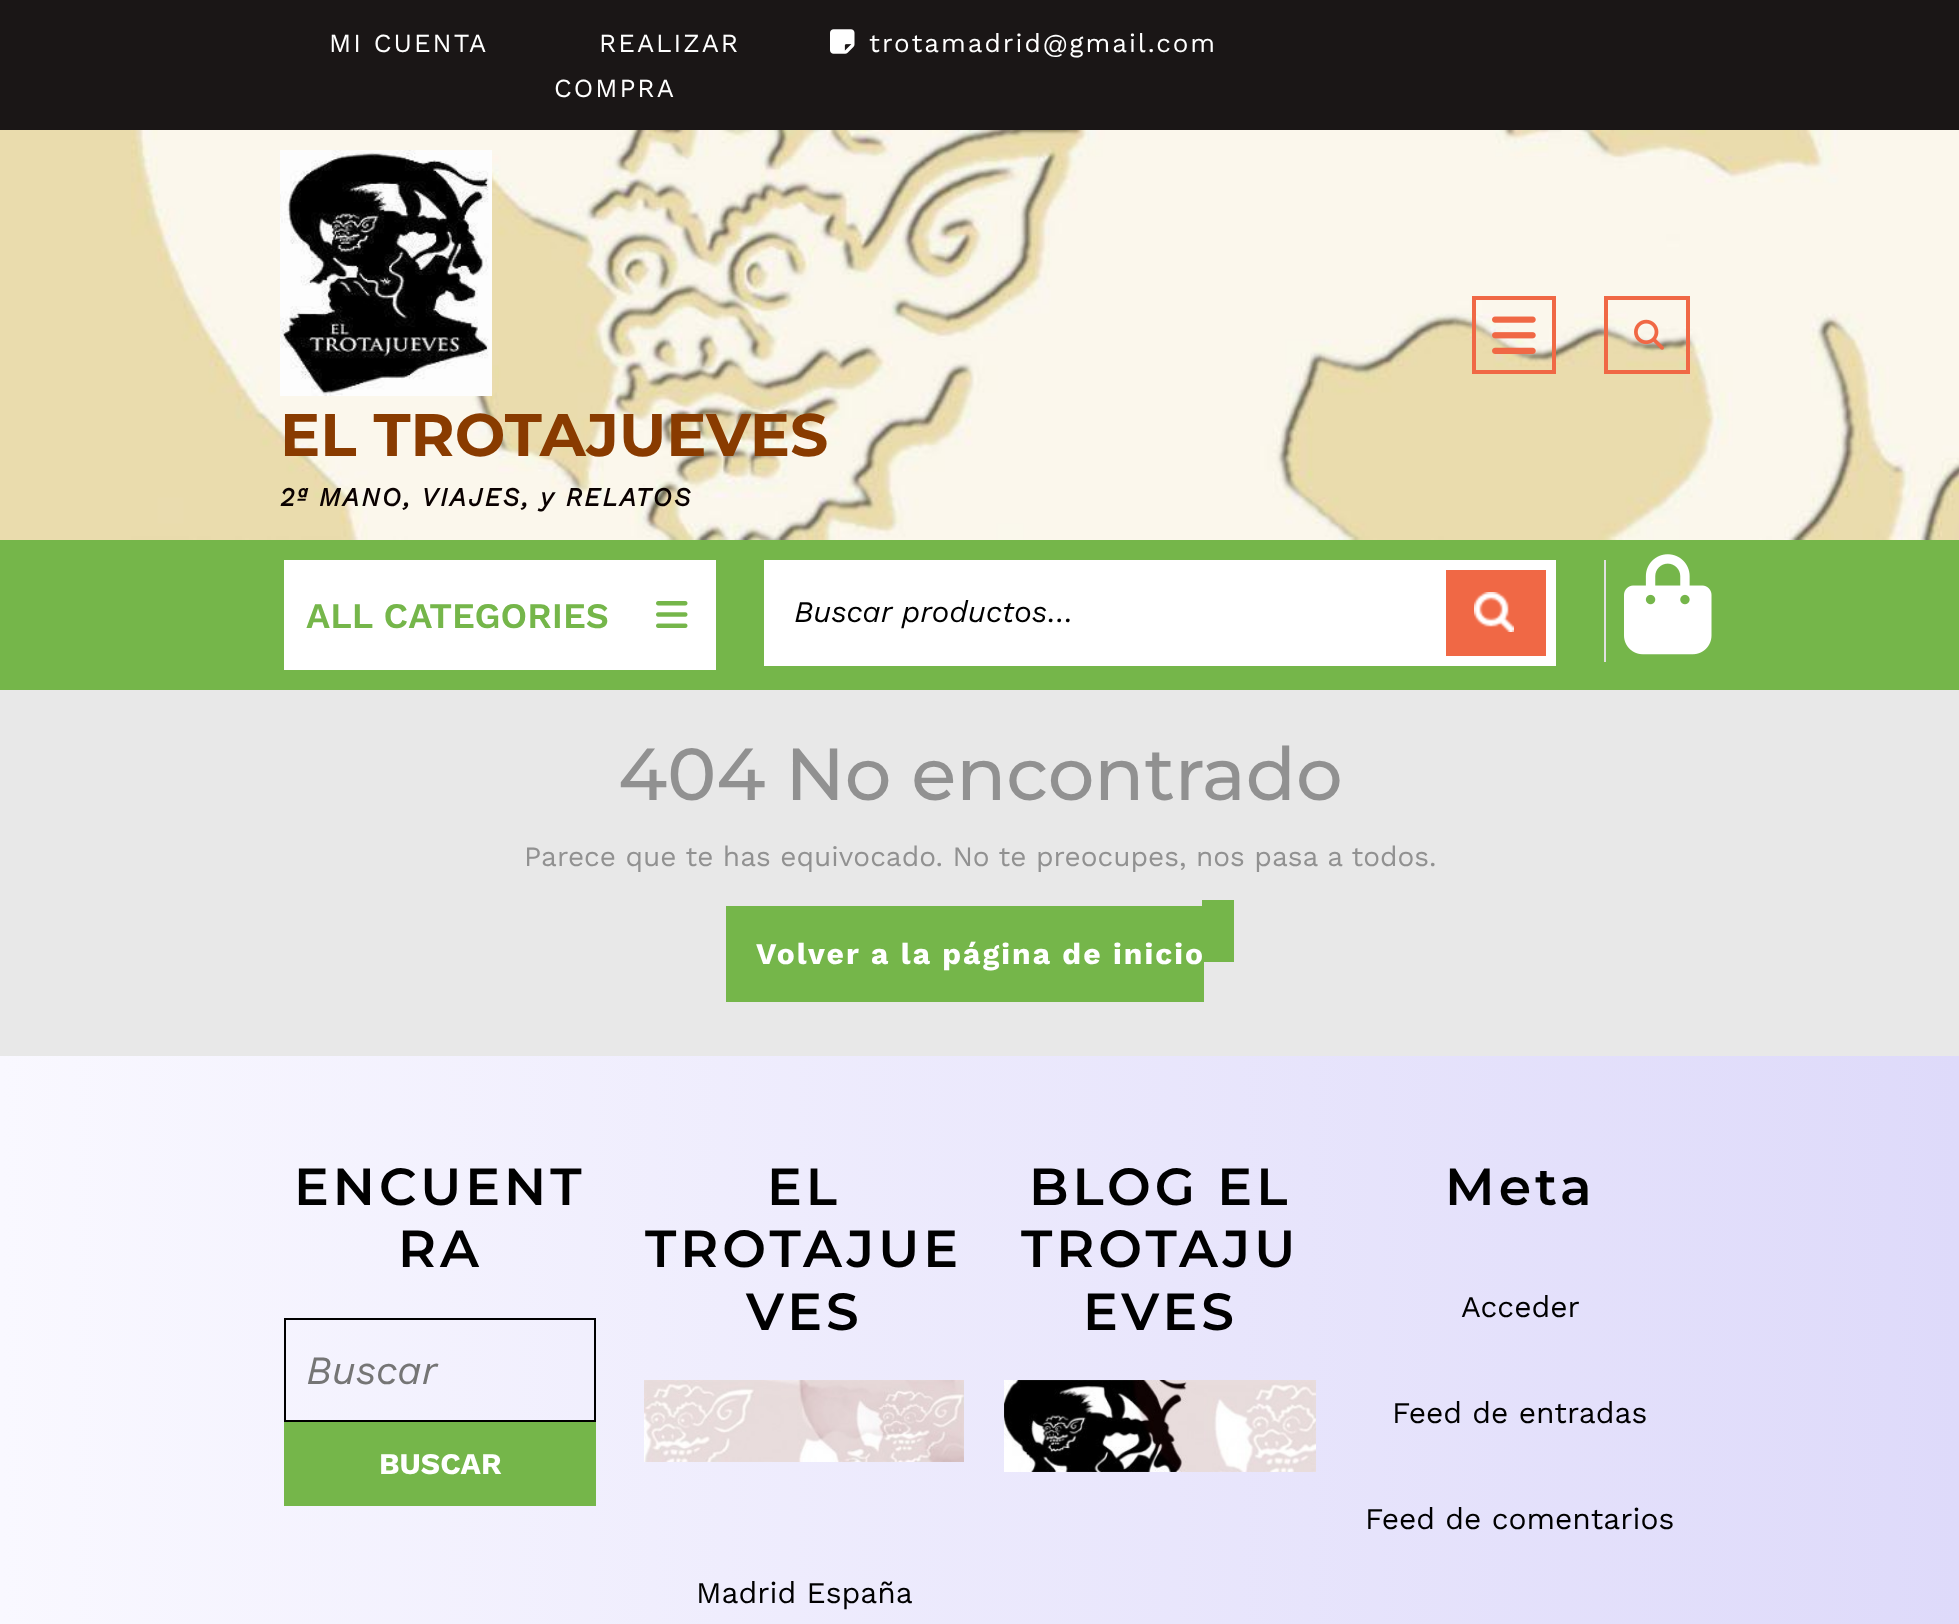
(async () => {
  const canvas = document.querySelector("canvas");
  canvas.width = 1959;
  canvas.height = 1624;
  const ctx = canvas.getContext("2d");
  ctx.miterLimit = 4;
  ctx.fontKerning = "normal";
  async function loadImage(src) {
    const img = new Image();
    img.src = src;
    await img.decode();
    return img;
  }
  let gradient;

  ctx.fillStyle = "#e8e8e8";
  ctx.fillRect(0, 0, 1959, 1624);
  ctx.drawImage(await loadImage("img/1.png"), 0, 130, 131, 410);
  ctx.fillStyle = "#1a1616";
  ctx.fillRect(0, 0, 1959, 130);
  ctx.drawImage(await loadImage("img/2.png"), 830, 29, 25, 25);
  ctx.drawImage(await loadImage("img/3.png"), 131, 130, 1828, 410);
  ctx.strokeStyle = "#f06845";
  ctx.lineWidth = 4;
  ctx.strokeRect(1474, 298, 80, 74);
  ctx.drawImage(await loadImage("img/4.png"), 1492, 316, 44, 38);
  ctx.strokeRect(1606, 298, 82, 74);
  ctx.drawImage(await loadImage("img/5.png"), 1634, 319, 30, 31);
  ctx.drawImage(await loadImage("img/6.png"), 280, 150, 212, 246);
  ctx.fillStyle = "#75b64a";
  ctx.fillRect(0, 540, 1959, 150);
  ctx.fillStyle = "#ffffff";
  ctx.fillRect(284, 560, 432, 110);
  ctx.drawImage(await loadImage("img/7.png"), 656, 601, 32, 27);
  ctx.fillRect(764, 560, 792, 106);
  ctx.fillStyle = "#f06845";
  ctx.fillRect(1446, 570, 100, 86);
  ctx.drawImage(await loadImage("img/8.png"), 1474, 592, 40, 40);
  ctx.fillStyle = "#e1e1e1";
  ctx.fillRect(1604, 560, 2, 102);
  ctx.drawImage(await loadImage("img/9.png"), 1624, 554, 88, 101);
  ctx.fillStyle = "#75b64a";
  ctx.fillRect(726, 906, 478, 96);
  ctx.fillRect(1202, 900, 32, 62);
  gradient = ctx.createLinearGradient(0, 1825, 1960, 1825);
  gradient.addColorStop(0, "#f9f8ff");
  gradient.addColorStop(1, "#dedafa");
  ctx.fillStyle = gradient;
  ctx.fillRect(0, 1056, 1959, 568);
  ctx.strokeStyle = "#000000";
  ctx.lineWidth = 2;
  ctx.strokeRect(285, 1319, 310, 102);
  ctx.fillStyle = "#75b64a";
  ctx.fillRect(284, 1422, 312, 84);
  ctx.drawImage(await loadImage("img/10.png"), 644, 1380, 320, 82);
  ctx.drawImage(await loadImage("img/11.png"), 1004, 1380, 312, 92);
  ctx.letterSpacing = "2px";
  ctx.font = "26px Work Sans";
  ctx.fillStyle = "#ffffff";
  for (const [text, x, y] of [
    ["MI CUENTA", 329, 52],
    ["REALIZAR", 599, 52],
    ["COMPRA", 554, 97],
    ["trotamadrid@gmail.com", 869, 52],
  ]) {
    ctx.fillText(text, x, y);
  }
  ctx.letterSpacing = "0px";
  ctx.font = "bold 60px Montserrat";
  ctx.fillStyle = "#893b00";
  ctx.fillText("EL TROTAJUEVES", 280, 456);
  ctx.letterSpacing = "2px";
  ctx.font = "italic bold 26px Work Sans";
  ctx.fillStyle = "#0a0100";
  ctx.fillText("2ª MANO, VIAJES, y RELATOS", 280, 506);
  ctx.letterSpacing = "0px";
  ctx.font = "600 36px Work Sans";
  ctx.fillStyle = "#75b64a";
  ctx.fillText("ALL CATEGORIES", 306, 628);
  ctx.font = "italic 30px Work Sans";
  ctx.fillStyle = "#000000";
  ctx.fillText("Buscar productos…", 794, 622);
  ctx.font = "500 73.5px Montserrat";
  ctx.fillStyle = "#919191";
  ctx.fillText("404 No encontrado", 618, 800);
  ctx.font = "28px Work Sans";
  ctx.fillText("Parece que te has equivocado. No te preocupes, nos pasa a todos.", 524, 866);
  ctx.letterSpacing = "2px";
  ctx.font = "bold 30px Work Sans";
  ctx.fillStyle = "#ffffff";
  ctx.fillText("Volver a la página de inicio", 756, 964);
  ctx.letterSpacing = "4px";
  ctx.font = "600 52px Montserrat";
  ctx.fillStyle = "#000000";
  ctx.fillText("ENCUENT", 294, 1205);
  ctx.fillText("RA", 398, 1267);
  ctx.letterSpacing = "0px";
  ctx.font = "italic 40px Work Sans";
  ctx.fillStyle = "#757575";
  ctx.fillText("Buscar", 306, 1384);
  ctx.font = "bold 30px Work Sans";
  ctx.fillStyle = "#ffffff";
  ctx.fillText("BUSCAR", 379, 1474);
  ctx.letterSpacing = "4px";
  ctx.font = "600 52px Montserrat";
  ctx.fillStyle = "#000000";
  for (const [text, x, y] of [
    ["EL", 767, 1205],
    ["TROTAJUE", 645, 1267],
    ["VES", 746, 1330],
  ]) {
    ctx.fillText(text, x, y);
  }
  ctx.letterSpacing = "0px";
  ctx.font = "30px Work Sans";
  ctx.fillText("Madrid España", 696, 1603);
  ctx.letterSpacing = "4px";
  ctx.font = "600 52px Montserrat";
  for (const [text, x, y] of [
    ["BLOG EL", 1029, 1205],
    ["TROTAJU", 1021, 1267],
    ["EVES", 1083, 1330],
    ["Meta", 1445, 1205],
  ]) {
    ctx.fillText(text, x, y);
  }
  ctx.letterSpacing = "0px";
  ctx.font = "30px Work Sans";
  for (const [text, x, y] of [
    ["Acceder", 1461, 1317],
    ["Feed de entradas", 1392, 1423],
    ["Feed de comentarios", 1365, 1529],
  ]) {
    ctx.fillText(text, x, y);
  }
})();
